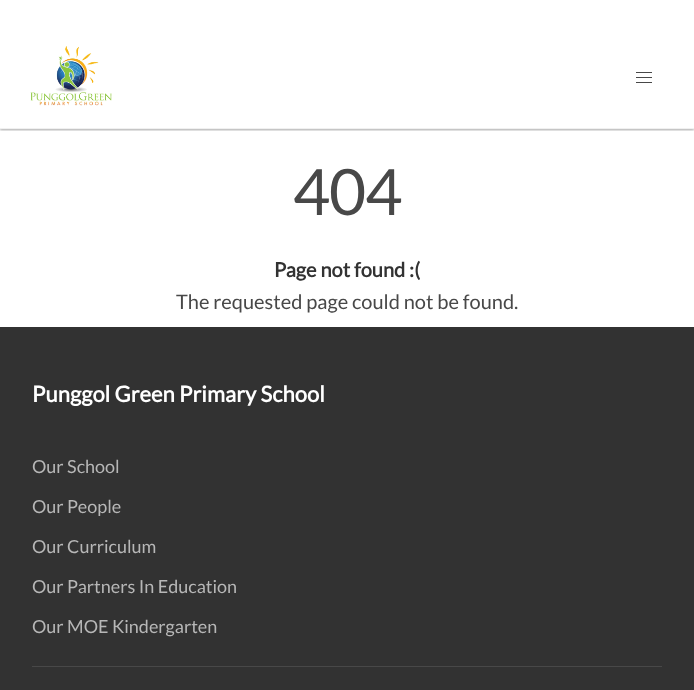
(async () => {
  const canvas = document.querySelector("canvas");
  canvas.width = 694;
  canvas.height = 690;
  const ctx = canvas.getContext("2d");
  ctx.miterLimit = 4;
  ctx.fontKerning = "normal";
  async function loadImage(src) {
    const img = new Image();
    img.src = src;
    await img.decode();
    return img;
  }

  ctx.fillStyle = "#ffffff";
  ctx.fillRect(0, 0, 694, 690);
  ctx.save();
  ctx.beginPath();
  ctx.rect(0, 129, 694, 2);
  ctx.clip();
  ctx.fillStyle = "rgba(0, 0, 0, 0.24)";
  ctx.filter = "blur(1px)";
  ctx.beginPath();
  ctx.rect(0, -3, 694, 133);
  ctx.fill();
  ctx.filter = "none";
  ctx.fillStyle = "rgba(0, 0, 0, 0.12)";
  ctx.filter = "blur(1.5px)";
  ctx.beginPath();
  ctx.rect(0, -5, 694, 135);
  ctx.fill();
  ctx.filter = "none";
  ctx.restore();
  ctx.fillStyle = "#f0f0f0";
  ctx.fillRect(0, 128, 694, 1);
  ctx.drawImage(await loadImage("img/1.png"), 30, 46, 82, 60);
  for (const [x, y, w, h, color] of [
    [636, 72, 16, 1, "#484848"],
    [636, 77, 16, 1, "#484848"],
    [636, 82, 16, 1, "#484848"],
    [0, 327, 694, 363, "#323232"],
    [32, 666, 630, 1, "#484848"],
  ]) {
    ctx.fillStyle = color;
    ctx.fillRect(x, y, w, h);
  }
  ctx.letterSpacing = "-1px";
  ctx.font = "64px Lato";
  ctx.fillText("404", 293, 215);
  ctx.letterSpacing = "0px";
  ctx.font = "bold 20px Lato";
  ctx.fillStyle = "#323232";
  ctx.fillText("Page not found :(", 274, 277);
  ctx.font = "20px Lato";
  ctx.fillStyle = "#484848";
  ctx.fillText("The requested page could not be found.", 176, 309);
  ctx.font = "bold 22px Lato";
  ctx.fillStyle = "#ffffff";
  ctx.fillText("Punggol Green Primary School", 32, 402);
  ctx.font = "18px Lato";
  ctx.fillStyle = "#b7b7b7";
  for (const [text, x, y] of [
    ["Our School", 32, 473],
    ["Our People", 32, 513],
    ["Our Curriculum", 32, 553],
    ["Our Partners In Education", 32, 593],
    ["Our MOE Kindergarten", 32, 633],
  ]) {
    ctx.fillText(text, x, y);
  }
})();
